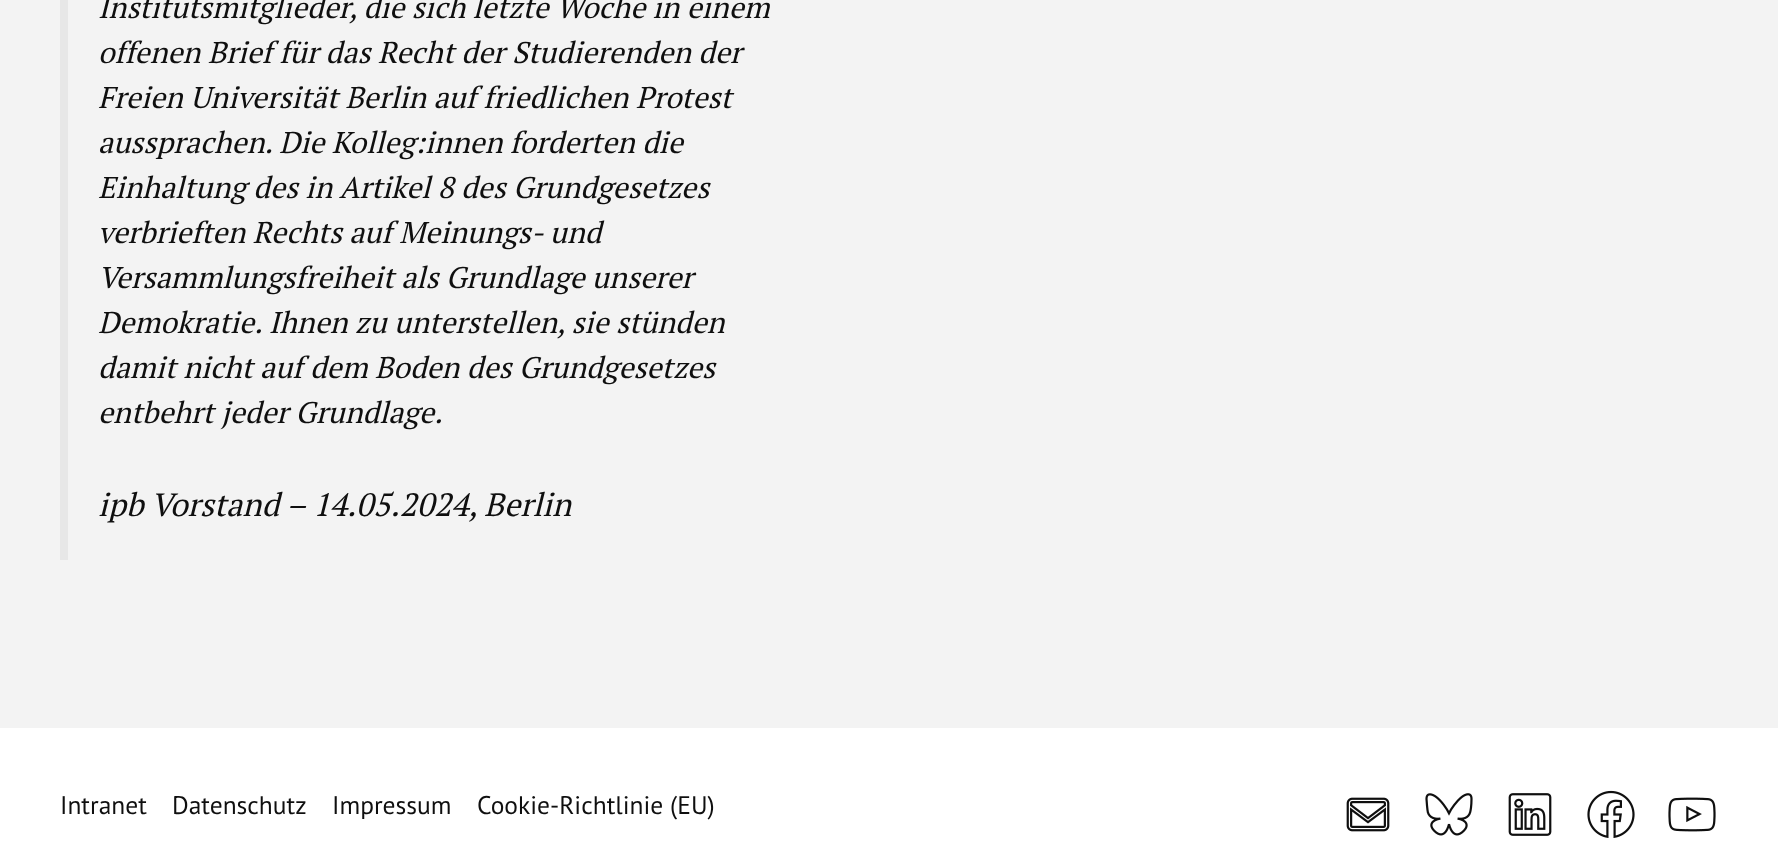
(async () => {
  const canvas = document.querySelector("canvas");
  canvas.width = 1778;
  canvas.height = 865;
  const ctx = canvas.getContext("2d");
  ctx.miterLimit = 4;
  ctx.fontKerning = "normal";
  async function loadImage(src) {
    const img = new Image();
    img.src = src;
    await img.decode();
    return img;
  }

  ctx.fillStyle = "#f3f3f3";
  ctx.fillRect(0, 0, 1778, 865);
  ctx.fillStyle = "#e7e7e7";
  ctx.fillRect(60, 0, 8, 560);
  ctx.fillStyle = "#ffffff";
  ctx.fillRect(0, 728, 1778, 137);
  ctx.drawImage(await loadImage("img/1.png"), 1346, 797, 44, 35);
  ctx.drawImage(await loadImage("img/2.png"), 1425, 793, 48, 43);
  ctx.drawImage(await loadImage("img/3.png"), 1508, 793, 44, 43);
  ctx.drawImage(await loadImage("img/4.png"), 1587, 790, 48, 48);
  ctx.drawImage(await loadImage("img/5.png"), 1668, 797, 48, 35);
  ctx.font = "italic 30px PT Serif";
  ctx.fillStyle = "#0f0f0f";
  for (const [text, x, y] of [
    ["Institutsmitglieder, die sich letzte Woche in einem", 98, 18],
    ["offenen Brief für das Recht der Studierenden der", 98, 63],
    ["Freien Universität Berlin auf friedlichen Protest", 98, 108],
    ["aussprachen. Die Kolleg:innen forderten die", 98, 153],
    ["Einhaltung des in Artikel 8 des Grundgesetzes", 98, 198],
    ["verbrieften Rechts auf Meinungs- und", 98, 243],
    ["Versammlungsfreiheit als Grundlage unserer", 98, 288],
    ["Demokratie. Ihnen zu unterstellen, sie stünden", 98, 333],
    ["damit nicht auf dem Boden des Grundgesetzes", 98, 378],
    ["entbehrt jeder Grundlage.", 98, 423],
  ]) {
    ctx.fillText(text, x, y);
  }
  ctx.font = "italic 32.3px PT Serif";
  ctx.fillText("ipb Vorstand – 14.05.2024, Berlin", 98, 516);
  ctx.font = "25.5px PT Sans";
  for (const [text, x, y] of [
    ["Intranet", 60, 814],
    ["Datenschutz", 172, 814],
    ["Impressum", 332, 814],
    ["Cookie-Richtlinie (EU)", 477, 814],
  ]) {
    ctx.fillText(text, x, y);
  }
})();
